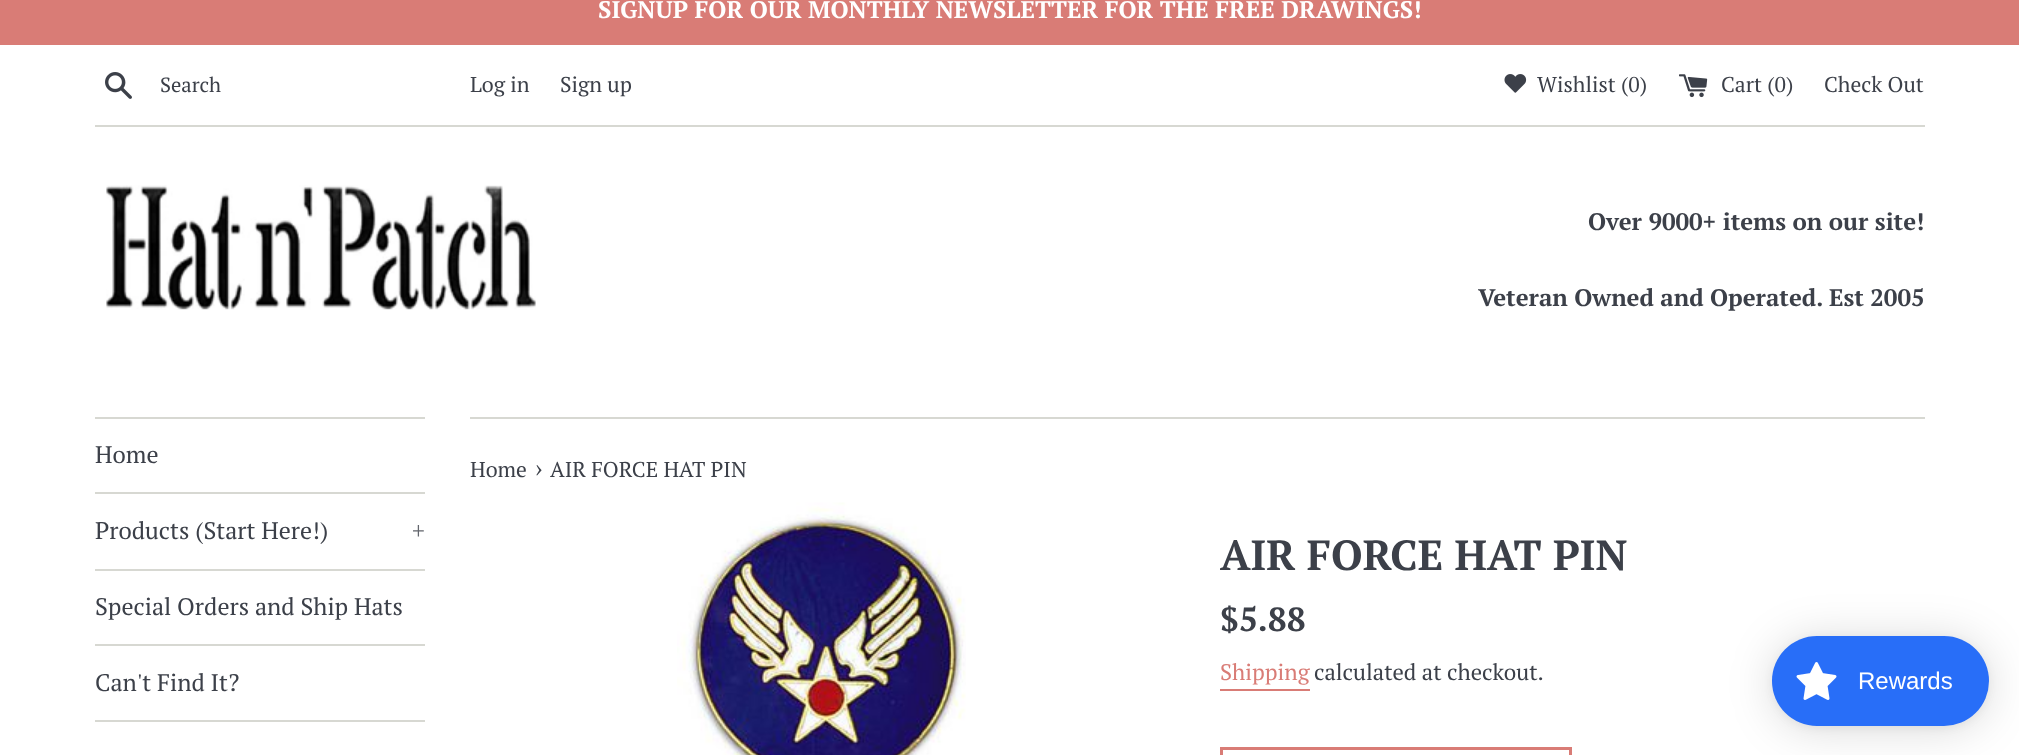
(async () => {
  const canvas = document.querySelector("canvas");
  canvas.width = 2019;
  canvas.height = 755;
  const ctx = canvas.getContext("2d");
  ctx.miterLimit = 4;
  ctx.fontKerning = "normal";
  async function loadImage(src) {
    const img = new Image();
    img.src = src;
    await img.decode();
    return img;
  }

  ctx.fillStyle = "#ffffff";
  ctx.fillRect(0, 0, 2019, 755);
  ctx.fillStyle = "#d97c76";
  ctx.fillRect(0, 0, 2019, 45);
  ctx.drawImage(await loadImage("img/1.png"), 105, 72, 27, 27);
  ctx.drawImage(await loadImage("img/2.png"), 1504, 74, 23, 19);
  ctx.drawImage(await loadImage("img/3.png"), 1679, 74, 29, 24);
  ctx.fillStyle = "#d7d8d2";
  ctx.fillRect(95, 125, 1830, 2);
  ctx.drawImage(await loadImage("img/4.png"), 106, 185, 430, 125);
  for (const [x, y, w, h, color] of [
    [95, 417, 330, 2, "#d7d8d2"],
    [95, 492, 330, 2, "#d7d8d2"],
    [95, 569, 330, 2, "#d7d8d2"],
    [95, 644, 330, 2, "#d7d8d2"],
    [95, 720, 330, 2, "#d7d8d2"],
    [470, 417, 1455, 2, "#d7d8d2"],
  ]) {
    ctx.fillStyle = color;
    ctx.fillRect(x, y, w, h);
  }
  ctx.drawImage(await loadImage("img/5.png"), 677, 502, 289, 253);
  ctx.fillStyle = "#d97c76";
  ctx.fillRect(1220, 689, 90, 2);
  ctx.strokeStyle = "#d97c76";
  ctx.lineWidth = 3;
  ctx.strokeRect(1221.5, 748.5, 349, 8);
  ctx.fillStyle = "rgba(0, 0, 0, 0.15)";
  ctx.filter = "blur(22.5px)";
  ctx.beginPath();
  ctx.roundRect(1772, 639, 217, 90, 45);
  ctx.fill();
  ctx.filter = "none";
  ctx.fillStyle = "rgba(0, 0, 0, 0.05)";
  ctx.filter = "blur(4.5px)";
  ctx.beginPath();
  ctx.roundRect(1772, 638, 217, 90, 45);
  ctx.fill();
  ctx.filter = "none";
  ctx.fillStyle = "#286ef8";
  ctx.beginPath();
  ctx.roundRect(1772, 636, 217, 90, 45);
  ctx.fill();
  ctx.drawImage(await loadImage("img/6.png"), 1796, 662, 41, 38);
  ctx.font = "bold 24px PT Serif";
  ctx.fillStyle = "#ffffff";
  ctx.fillText("SIGNUP FOR OUR MONTHLY NEWSLETTER FOR THE FREE DRAWINGS!", 598, 18);
  ctx.font = "20.5px PT Serif";
  ctx.fillStyle = "#3c4049";
  ctx.fillText("Search", 160, 92);
  ctx.font = "21.5px PT Serif";
  for (const [text, x, y] of [
    ["Log in", 470, 92],
    ["Sign up", 560, 92],
    ["Wishlist (0)", 1537, 92],
    ["Cart (0)", 1721, 92],
    ["Check Out", 1824, 92],
  ]) {
    ctx.fillText(text, x, y);
  }
  ctx.font = "bold 24px PT Serif";
  ctx.fillText("Over 9000+ items on our site!", 1588, 230);
  ctx.fillText("Veteran Owned and Operated. Est 2005", 1478, 306);
  ctx.font = "24px PT Serif";
  ctx.fillText("Home", 95, 463);
  ctx.fillText("Products (Start Here!)", 95, 539);
  ctx.fillStyle = "#63666d";
  ctx.fillText("+", 412, 539);
  ctx.fillStyle = "#3c4049";
  ctx.fillText("Special Orders and Ship Hats", 95, 615);
  ctx.fillText("Can't Find It?", 95, 691);
  ctx.font = "21.5px PT Serif";
  ctx.fillText("Home", 470, 477);
  ctx.font = "26px PT Serif";
  ctx.fillText("›", 535, 477);
  ctx.font = "21.5px PT Serif";
  ctx.fillText("AIR FORCE HAT PIN", 550, 477);
  ctx.font = "bold 42px PT Serif";
  ctx.fillText("AIR FORCE HAT PIN", 1220, 570);
  ctx.font = "bold 33.5px PT Serif";
  ctx.fillText("$5.88", 1220, 631);
  ctx.font = "22.5px PT Serif";
  ctx.fillStyle = "#d97c76";
  ctx.fillText("Shipping", 1220, 680);
  ctx.fillStyle = "#3c4049";
  ctx.fillText("calculated at checkout.", 1314, 680);
  ctx.font = "24px Liberation Sans";
  ctx.fillStyle = "#ffffff";
  ctx.fillText("Rewards", 1858, 689);
})();
